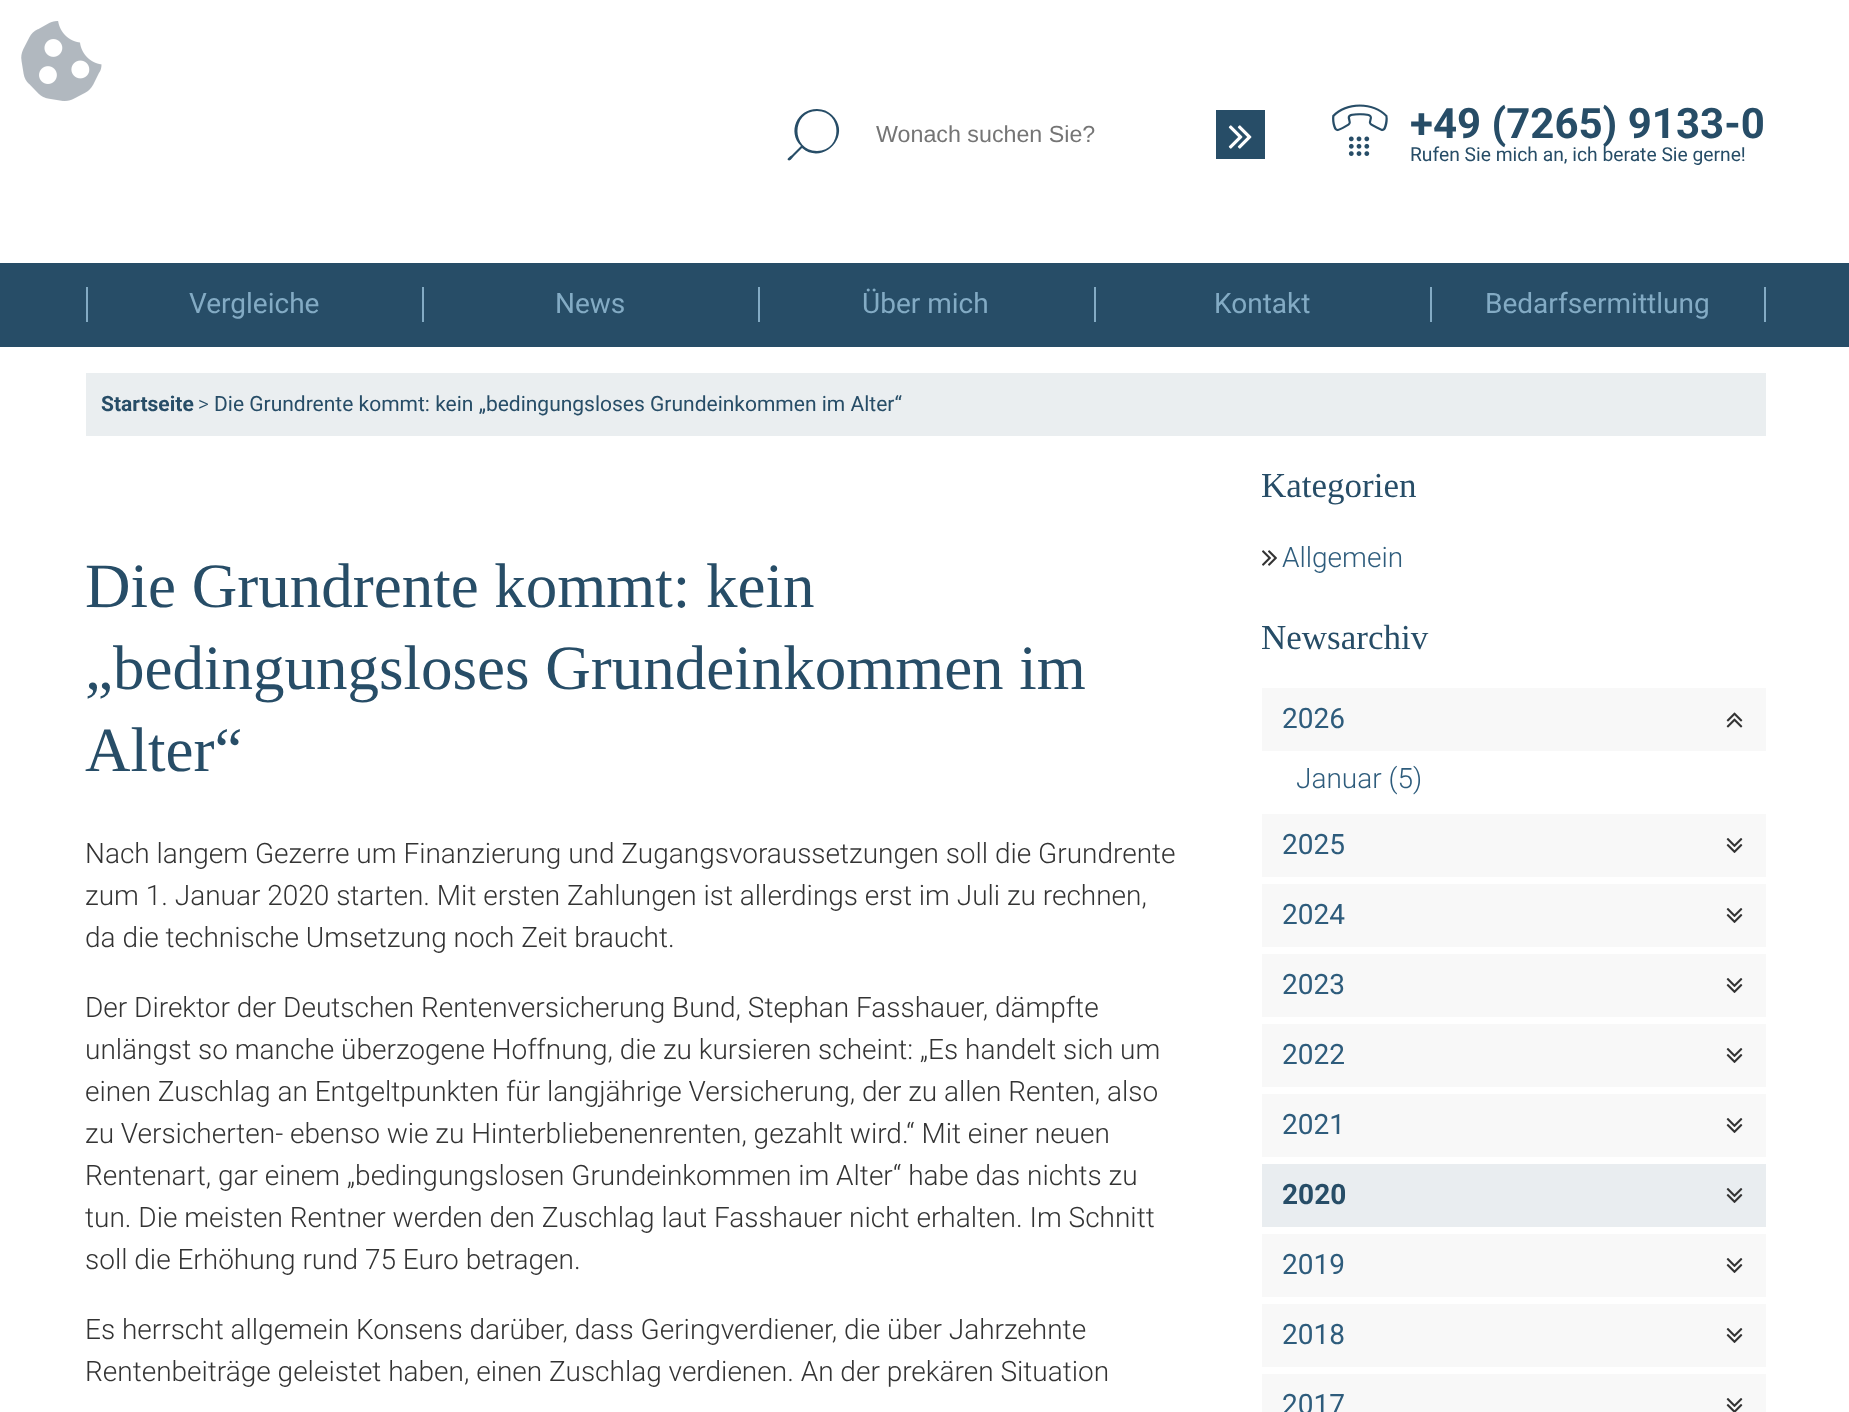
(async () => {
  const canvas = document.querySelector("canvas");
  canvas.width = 1849;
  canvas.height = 1412;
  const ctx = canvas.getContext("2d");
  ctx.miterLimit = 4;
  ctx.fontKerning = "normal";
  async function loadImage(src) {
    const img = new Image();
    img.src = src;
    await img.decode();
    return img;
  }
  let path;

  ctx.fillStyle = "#ffffff";
  ctx.fillRect(0, 0, 1849, 1412);
  ctx.drawImage(await loadImage("img/1.png"), 21, 21, 81, 80);
  ctx.fillStyle = "#274d67";
  path = new Path2D("M817 109C797 109 787 132 801 146L792 155C792 155 786 159 788 160C790 162 793 157 794 156L802 148C823 166 853 135 832 115C828 111 823 109 817 109ZM817 151C791 151 791 111 817 111C843 111 843 151 817 151Z");
  ctx.fill(path);
  ctx.fillRect(1216, 110, 49, 49);
  ctx.drawImage(await loadImage("img/2.png"), 1228, 125, 24, 24);
  ctx.drawImage(await loadImage("img/3.png"), 1332, 104, 56, 52);
  for (const [x, y, w, h, color] of [
    [0, 263, 1849, 84, "#274d67"],
    [86, 287, 2, 35, "#83abc4"],
    [422, 287, 2, 35, "#83abc4"],
    [758, 287, 2, 35, "#83abc4"],
    [1094, 287, 2, 35, "#83abc4"],
    [1764, 287, 2, 35, "#83abc4"],
    [1430, 287, 2, 35, "#83abc4"],
    [86, 373, 1680, 63, "#eaeef0"],
  ]) {
    ctx.fillStyle = color;
    ctx.fillRect(x, y, w, h);
  }
  ctx.drawImage(await loadImage("img/4.png"), 1262, 550, 15, 16);
  ctx.fillStyle = "#f8f8f8";
  ctx.fillRect(1262, 688, 504, 63);
  ctx.drawImage(await loadImage("img/5.png"), 1726, 712, 17, 16);
  ctx.fillRect(1262, 814, 504, 63);
  ctx.drawImage(await loadImage("img/6.png"), 1726, 838, 17, 15);
  ctx.fillRect(1262, 884, 504, 63);
  ctx.drawImage(await loadImage("img/6.png"), 1726, 908, 17, 15);
  ctx.fillRect(1262, 954, 504, 63);
  ctx.drawImage(await loadImage("img/6.png"), 1726, 978, 17, 15);
  ctx.fillRect(1262, 1024, 504, 63);
  ctx.drawImage(await loadImage("img/6.png"), 1726, 1048, 17, 15);
  ctx.fillRect(1262, 1094, 504, 63);
  ctx.drawImage(await loadImage("img/6.png"), 1726, 1118, 17, 15);
  ctx.fillStyle = "#e9edf0";
  ctx.fillRect(1262, 1164, 504, 63);
  ctx.drawImage(await loadImage("img/7.png"), 1726, 1188, 17, 15);
  ctx.fillStyle = "#f8f8f8";
  ctx.fillRect(1262, 1234, 504, 63);
  ctx.drawImage(await loadImage("img/6.png"), 1726, 1258, 17, 15);
  ctx.fillRect(1262, 1304, 504, 63);
  ctx.drawImage(await loadImage("img/6.png"), 1726, 1328, 17, 15);
  ctx.fillRect(1262, 1374, 504, 38);
  ctx.drawImage(await loadImage("img/8.png"), 1726, 1398, 17, 14);
  ctx.font = "23.25px Liberation Sans";
  ctx.fillStyle = "#757575";
  ctx.fillText("Wonach suchen Sie?", 876, 142);
  ctx.font = "bold 42px Roboto";
  ctx.fillStyle = "#274d67";
  ctx.fillText("+49 (7265) 9133-0", 1410, 138);
  ctx.font = "19.25px Roboto";
  ctx.fillText("Rufen Sie mich an, ich berate Sie gerne!", 1410, 161);
  ctx.font = "28px Roboto";
  ctx.fillStyle = "#83abc4";
  for (const [text, x, y] of [
    ["Vergleiche", 189, 313],
    ["News", 555, 313],
    ["Über mich", 862, 313],
    ["Kontakt", 1214, 313],
    ["Bedarfsermittlung", 1485, 313],
  ]) {
    ctx.fillText(text, x, y);
  }
  ctx.font = "bold 21px Roboto";
  ctx.fillStyle = "#274d67";
  ctx.fillText("Startseite", 101, 411);
  ctx.font = "300 21px Roboto";
  ctx.fillText(">", 198, 411);
  ctx.font = "21px Roboto";
  ctx.fillText("Die Grundrente kommt: kein „bedingungsloses Grundeinkommen im Alter“", 214, 411);
  ctx.font = "63px Liberation Serif";
  for (const [text, x, y] of [
    ["Die Grundrente kommt: kein", 85, 607],
    ["„bedingungsloses Grundeinkommen im", 85, 689],
    ["Alter“", 85, 771],
  ]) {
    ctx.fillText(text, x, y);
  }
  ctx.font = "300 28px Roboto";
  ctx.fillStyle = "#333333";
  for (const [text, x, y] of [
    ["Nach langem Gezerre um Finanzierung und Zugangsvoraussetzungen soll die Grundrente", 85, 863],
    ["zum 1. Januar 2020 starten. Mit ersten Zahlungen ist allerdings erst im Juli zu rechnen,", 85, 905],
    ["da die technische Umsetzung noch Zeit braucht.", 85, 947],
    ["Der Direktor der Deutschen Rentenversicherung Bund, Stephan Fasshauer, dämpfte", 85, 1017],
    ["unlängst so manche überzogene Hoffnung, die zu kursieren scheint: „Es handelt sich um", 85, 1059],
    ["einen Zuschlag an Entgeltpunkten für langjährige Versicherung, der zu allen Renten, also", 85, 1101],
    ["zu Versicherten- ebenso wie zu Hinterbliebenenrenten, gezahlt wird.“ Mit einer neuen", 85, 1143],
    ["Rentenart, gar einem „bedingungslosen Grundeinkommen im Alter“ habe das nichts zu", 85, 1185],
    ["tun. Die meisten Rentner werden den Zuschlag laut Fasshauer nicht erhalten. Im Schnitt", 85, 1227],
    ["soll die Erhöhung rund 75 Euro betragen.", 85, 1269],
    ["Es herrscht allgemein Konsens darüber, dass Geringverdiener, die über Jahrzehnte", 85, 1339],
    ["Rentenbeiträge geleistet haben, einen Zuschlag verdienen. An der prekären Situation", 85, 1381],
  ]) {
    ctx.fillText(text, x, y);
  }
  ctx.font = "35px Liberation Serif";
  ctx.fillStyle = "#274d67";
  ctx.fillText("Kategorien", 1261, 497);
  ctx.font = "300 28px Roboto";
  ctx.fillStyle = "#2e5c7c";
  ctx.fillText("Allgemein", 1282, 567);
  ctx.font = "35px Liberation Serif";
  ctx.fillStyle = "#274d67";
  ctx.fillText("Newsarchiv", 1261, 649);
  ctx.font = "28px Roboto";
  ctx.fillStyle = "#2e5c7c";
  ctx.fillText("2026", 1282, 728);
  ctx.font = "300 28px Roboto";
  ctx.fillText("Januar (5)", 1296, 788);
  ctx.font = "28px Roboto";
  for (const [text, x, y] of [
    ["2025", 1282, 854],
    ["2024", 1282, 924],
    ["2023", 1282, 994],
    ["2022", 1282, 1064],
    ["2021", 1282, 1134],
  ]) {
    ctx.fillText(text, x, y);
  }
  ctx.font = "bold 28px Roboto";
  ctx.fillStyle = "#274d67";
  ctx.fillText("2020", 1282, 1204);
  ctx.font = "28px Roboto";
  ctx.fillStyle = "#2e5c7c";
  for (const [text, x, y] of [
    ["2019", 1282, 1274],
    ["2018", 1282, 1344],
    ["2017", 1282, 1414],
  ]) {
    ctx.fillText(text, x, y);
  }
})();
